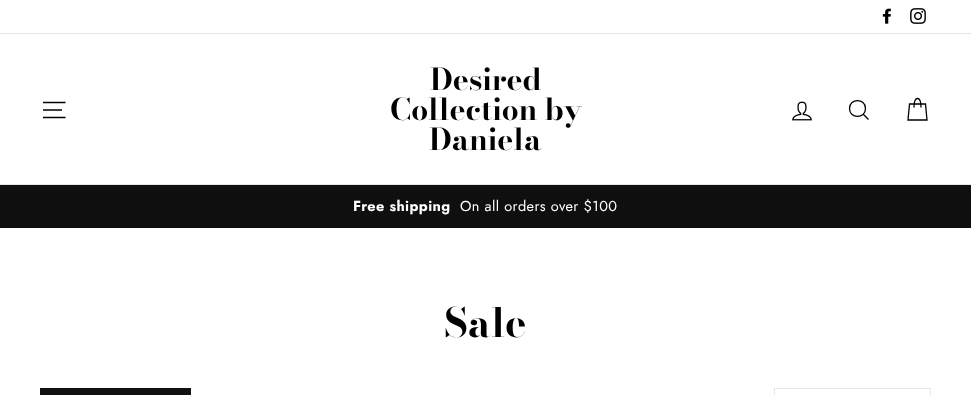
(async () => {
  const canvas = document.querySelector("canvas");
  canvas.width = 971;
  canvas.height = 395;
  const ctx = canvas.getContext("2d");
  ctx.miterLimit = 4;
  ctx.fontKerning = "normal";
  async function loadImage(src) {
    const img = new Image();
    img.src = src;
    await img.decode();
    return img;
  }
  let path;

  ctx.fillStyle = "#ffffff";
  ctx.fillRect(0, 0, 971, 395);
  ctx.drawImage(await loadImage("img/1.png"), 882, 8, 9, 16);
  ctx.drawImage(await loadImage("img/2.png"), 910, 8, 16, 16);
  ctx.fillStyle = "#e6e6e6";
  ctx.fillRect(0, 33, 971, 1);
  ctx.fillStyle = "#e8e8e1";
  ctx.fillRect(0, 184, 971, 1);
  path = new Path2D("M43 102.5H65.5M43 110H62M43 117.5H65.5");
  ctx.strokeStyle = "#000000";
  ctx.lineWidth = 1.3;
  ctx.stroke(path);
  ctx.drawImage(await loadImage("img/3.png"), 792, 101, 20, 20);
  path = new Path2D("M865.5 108.5C865.5 119 849.5 119 849.5 108.5C849.5 98 865.5 98 865.5 108.5ZM868.5 119.5L863.5 114.5");
  ctx.stroke(path);
  path = new Path2D("M914 107.5C914 95.5 921 95.5 921 107.5M909.5 104H925.5L927 120H908Z");
  ctx.stroke(path);
  ctx.fillStyle = "#0f0f0f";
  ctx.fillRect(0, 185, 971, 43);
  ctx.fillStyle = "#111111";
  ctx.fillRect(40, 388, 151, 7);
  ctx.strokeStyle = "#e8e8e1";
  ctx.lineWidth = 1;
  ctx.strokeRect(774.5, 388.5, 156, 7);
  ctx.font = "bold 30px 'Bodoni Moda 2'";
  ctx.fillStyle = "#000000";
  for (const [text, x, y] of [
    ["Desired", 430, 90],
    ["Collection by", 390, 120],
    ["Daniela", 429, 150],
  ]) {
    ctx.fillText(text, x, y);
  }
  ctx.letterSpacing = "0.4px";
  ctx.font = "bold 14.5px Jost";
  ctx.fillStyle = "#ffffff";
  ctx.fillText("Free shipping", 353, 211);
  ctx.font = "14.5px Jost";
  ctx.fillText("On all orders over $100", 460, 211);
  ctx.letterSpacing = "0px";
  ctx.font = "bold 40px Bodoni Moda";
  ctx.fillStyle = "#000000";
  ctx.fillText("Sale", 444, 337);
})();
